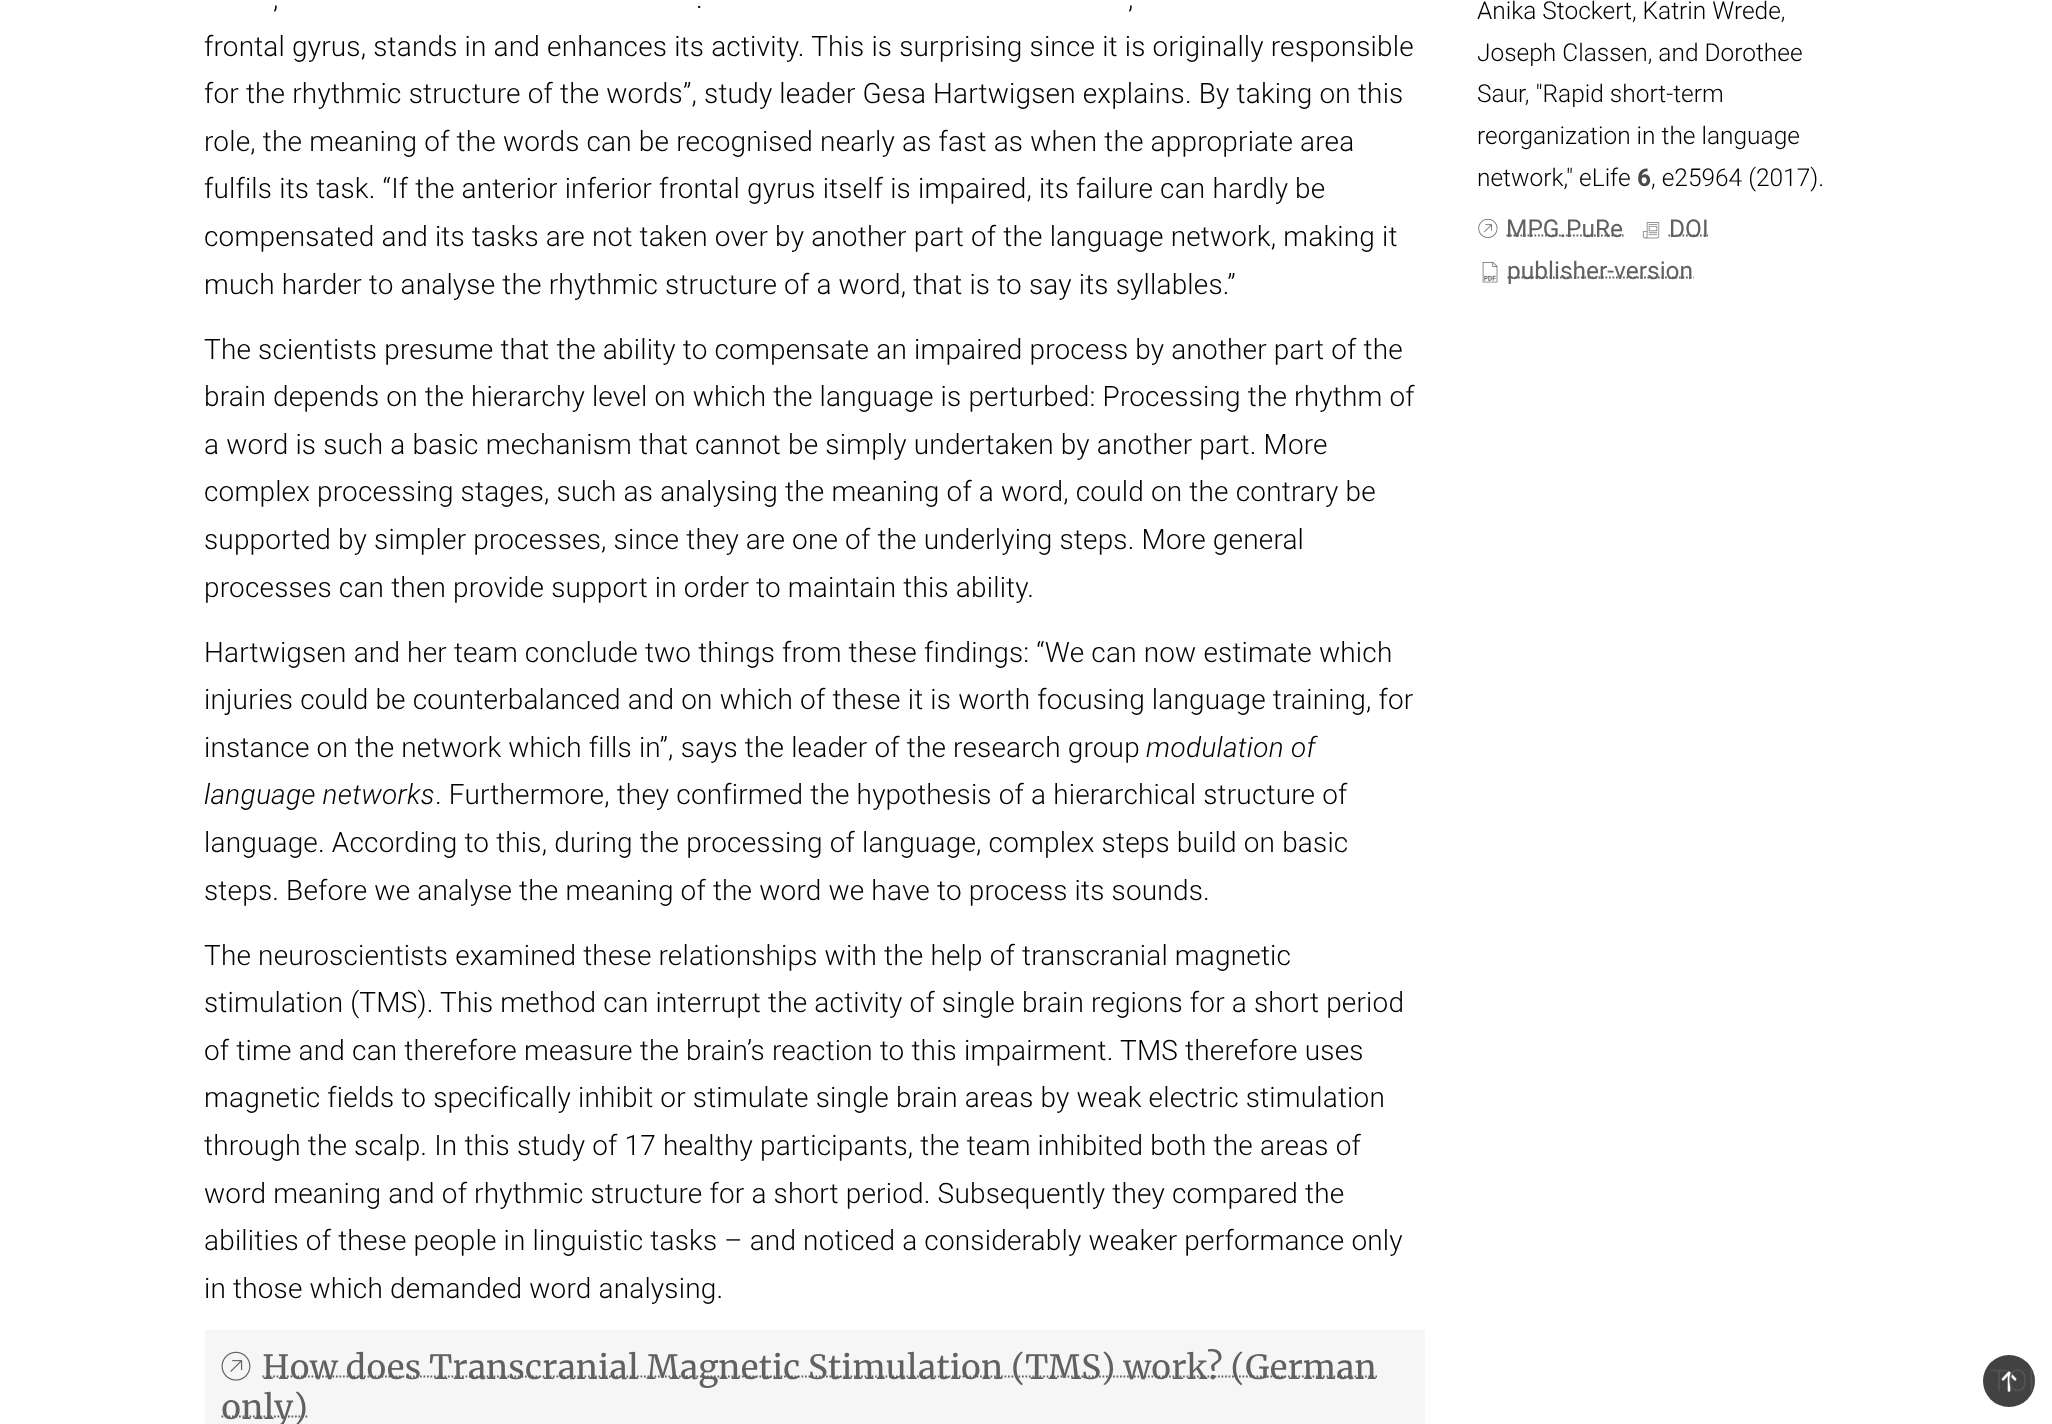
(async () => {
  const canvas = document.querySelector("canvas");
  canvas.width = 2052;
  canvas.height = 1424;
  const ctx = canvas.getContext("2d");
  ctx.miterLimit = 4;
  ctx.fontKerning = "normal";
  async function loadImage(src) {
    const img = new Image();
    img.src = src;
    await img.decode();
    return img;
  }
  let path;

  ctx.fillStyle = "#ffffff";
  ctx.fillRect(0, 0, 2052, 1424);
  ctx.fillStyle = "#f6f6f6";
  ctx.fillRect(205, 1330, 1220, 94);
  ctx.drawImage(await loadImage("img/1.png"), 221, 1351, 30, 30);
  path = new Path2D("M262.5 1376.5H1377");
  ctx.strokeStyle = "#616161";
  ctx.lineWidth = 1.8;
  ctx.setLineDash([1.75, 1.75]);
  ctx.stroke(path);
  path = new Path2D("M221.5 1416.5H308");
  ctx.stroke(path);
  ctx.drawImage(await loadImage("img/2.png"), 1478, 218, 20, 20);
  path = new Path2D("M1506.5 235.5H1623.5");
  ctx.stroke(path);
  ctx.drawImage(await loadImage("img/3.png"), 1642, 222, 18, 17);
  path = new Path2D("M1668.5 235.5H1708");
  ctx.stroke(path);
  ctx.drawImage(await loadImage("img/4.png"), 1482, 262, 16, 21);
  path = new Path2D("M1507.5 277.5H1693.5");
  ctx.stroke(path);
  ctx.fillStyle = "#424242";
  ctx.beginPath();
  ctx.arc(2009, 1381, 26, 0, Math.PI * 2);
  ctx.fill();
  ctx.drawImage(await loadImage("img/5.png"), 2001, 1371, 16, 22);
  ctx.letterSpacing = "0.18px";
  ctx.font = "300 28px Roboto";
  ctx.fillStyle = "#000000";
  for (const [text, x, y] of [
    [",", 273, 8],
    [".", 696, 8],
    [",", 1128, 8],
    ["frontal gyrus, stands in and enhances its activity. This is surprising since it is originally responsible", 204, 56],
    ["for the rhythmic structure of the words”, study leader Gesa Hartwigsen explains. By taking on this", 204, 103],
    ["role, the meaning of the words can be recognised nearly as fast as when the appropriate area", 204, 151],
    ["fulfils its task. “If the anterior inferior frontal gyrus itself is impaired, its failure can hardly be", 204, 198],
    ["compensated and its tasks are not taken over by another part of the language network, making it", 204, 246],
    ["much harder to analyse the rhythmic structure of a word, that is to say its syllables.”", 204, 294],
    ["The scientists presume that the ability to compensate an impaired process by another part of the", 204, 359],
    ["brain depends on the hierarchy level on which the language is perturbed: Processing the rhythm of", 204, 406],
    ["a word is such a basic mechanism that cannot be simply undertaken by another part. More", 204, 454],
    ["complex processing stages, such as analysing the meaning of a word, could on the contrary be", 204, 501],
    ["supported by simpler processes, since they are one of the underlying steps. More general", 204, 549],
    ["processes can then provide support in order to maintain this ability.", 204, 597],
    ["Hartwigsen and her team conclude two things from these findings: “We can now estimate which", 204, 662],
    ["injuries could be counterbalanced and on which of these it is worth focusing language training, for", 204, 709],
    ["instance on the network which fills in”, says the leader of the research group", 204, 757],
  ]) {
    ctx.fillText(text, x, y);
  }
  ctx.font = "italic 300 28px Roboto";
  ctx.fillText("modulation of", 1146, 757);
  ctx.fillText("language networks", 204, 804);
  ctx.font = "300 28px Roboto";
  for (const [text, x, y] of [
    [". Furthermore, they confirmed the hypothesis of a hierarchical structure of", 435, 804],
    ["language. According to this, during the processing of language, complex steps build on basic", 204, 852],
    ["steps. Before we analyse the meaning of the word we have to process its sounds.", 204, 900],
    ["The neuroscientists examined these relationships with the help of transcranial magnetic", 204, 965],
    ["stimulation (TMS). This method can interrupt the activity of single brain regions for a short period", 204, 1012],
    ["of time and can therefore measure the brain’s reaction to this impairment. TMS therefore uses", 204, 1060],
    ["magnetic fields to specifically inhibit or stimulate single brain areas by weak electric stimulation", 204, 1107],
    ["through the scalp. In this study of 17 healthy participants, the team inhibited both the areas of", 204, 1155],
    ["word meaning and of rhythmic structure for a short period. Subsequently they compared the", 204, 1203],
    ["abilities of these people in linguistic tasks – and noticed a considerably weaker performance only", 204, 1250],
    ["in those which demanded word analysing.", 204, 1298],
  ]) {
    ctx.fillText(text, x, y);
  }
  ctx.letterSpacing = "0px";
  ctx.font = "33.25px Merriweather";
  ctx.fillStyle = "#616161";
  ctx.fillText("How does Transcranial Magnetic Stimulation (TMS) work? (German", 262, 1379);
  ctx.fillText("only)", 221, 1419);
  ctx.font = "300 24.5px Roboto";
  ctx.fillStyle = "#000000";
  for (const [text, x, y] of [
    ["Anika Stockert, Katrin Wrede,", 1477, 19],
    ["Joseph Classen, and Dorothee", 1477, 61],
    ["Saur, \"Rapid short-term", 1477, 102],
    ["reorganization in the language", 1477, 144],
    ["network,\" eLife", 1477, 186],
  ]) {
    ctx.fillText(text, x, y);
  }
  ctx.font = "bold 24.5px Roboto";
  ctx.fillStyle = "#49494b";
  ctx.fillText("6", 1637, 186);
  ctx.font = "300 24.5px Roboto";
  ctx.fillStyle = "#000000";
  ctx.fillText(", e25964 (2017).", 1651, 186);
  ctx.font = "24.5px Roboto";
  ctx.fillStyle = "#616161";
  for (const [text, x, y] of [
    ["MPG.PuRe", 1506, 237],
    ["DOI", 1669, 237],
    ["publisher-version", 1507, 279],
  ]) {
    ctx.fillText(text, x, y);
  }
  ctx.save();
  ctx.beginPath();
  ctx.roundRect(1983, 1355, 52, 52, 26);
  ctx.clip();
  ctx.font = "300 30px Roboto";
  ctx.fillStyle = "#545454";
  ctx.fillText("TOP", 1990, 1391);
  ctx.restore();
})();
